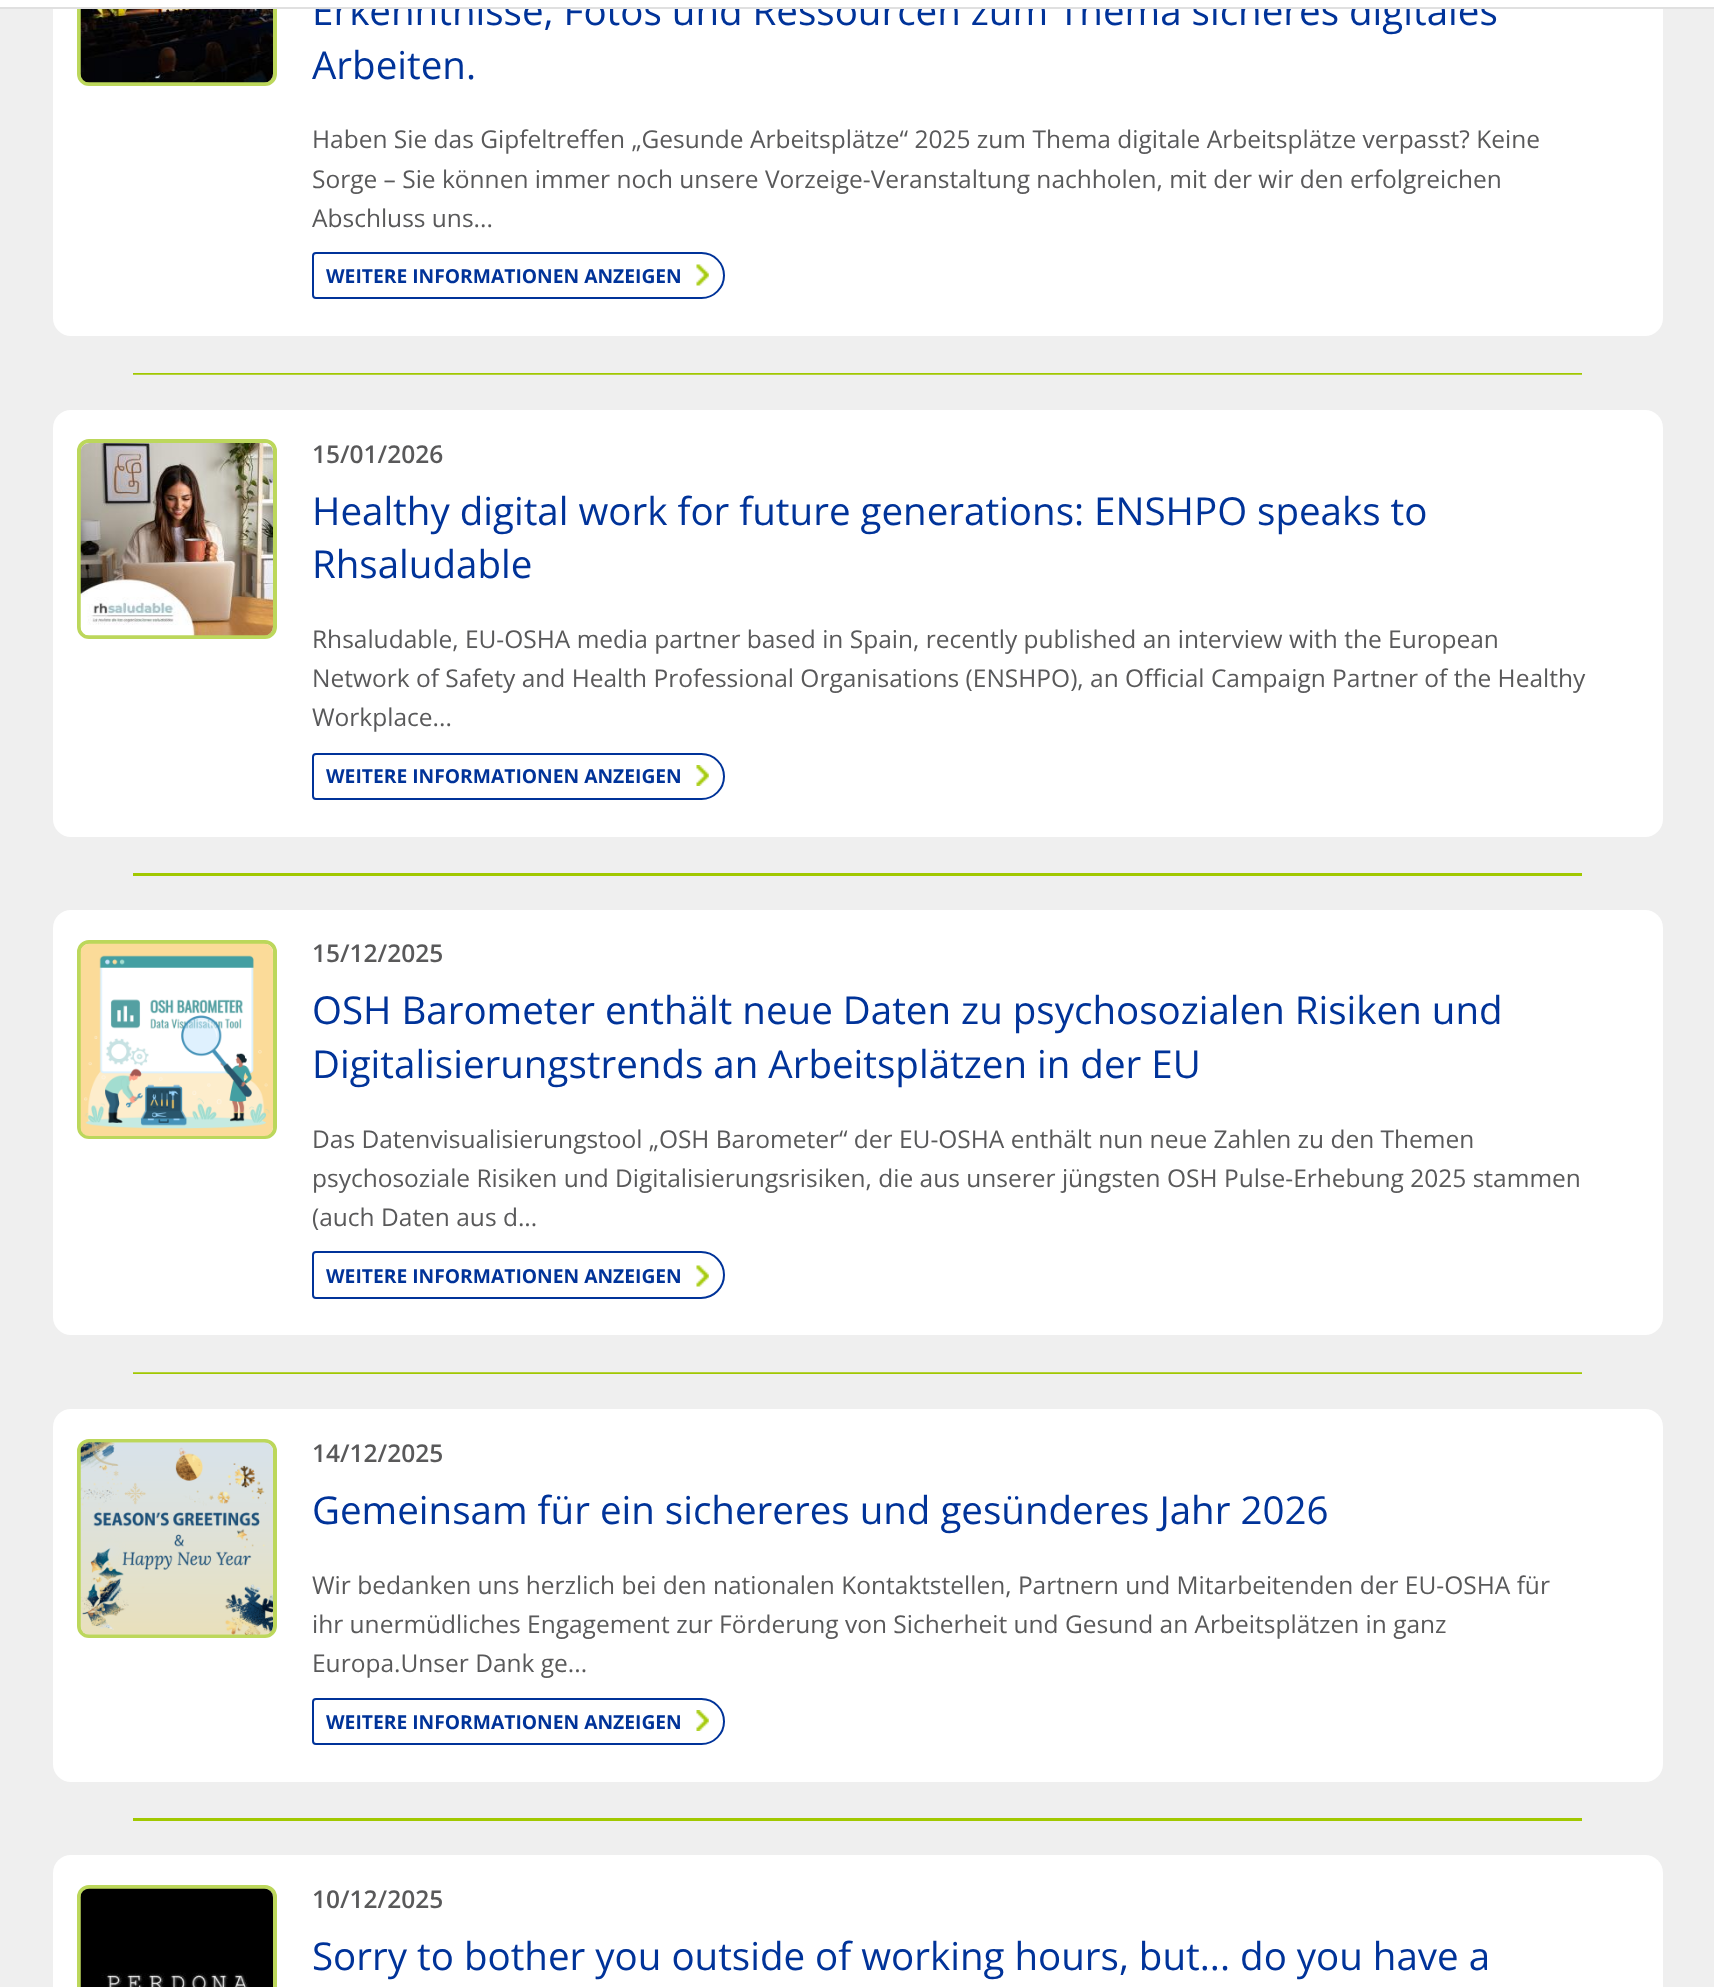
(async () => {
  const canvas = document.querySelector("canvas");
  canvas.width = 1714;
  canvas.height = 1987;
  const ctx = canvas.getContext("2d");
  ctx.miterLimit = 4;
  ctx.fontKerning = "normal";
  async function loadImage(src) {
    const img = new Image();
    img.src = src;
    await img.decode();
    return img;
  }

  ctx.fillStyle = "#efefef";
  ctx.fillRect(0, 0, 1714, 1987);
  ctx.fillStyle = "#ffffff";
  ctx.beginPath();
  ctx.roundRect(53, -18, 1610, 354, 18);
  ctx.fill();
  ctx.beginPath();
  ctx.roundRect(79, -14, 196, 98, 10);
  ctx.strokeStyle = "#bcd75b";
  ctx.lineWidth = 4;
  ctx.stroke();
  ctx.drawImage(await loadImage("img/1.png"), 80, 9, 193, 74);
  ctx.drawImage(await loadImage("img/2.png"), 696, 264, 13, 22);
  ctx.beginPath();
  ctx.roundRect(313, 253, 411, 45, [3, 22.5, 22.5, 3]);
  ctx.strokeStyle = "#003399";
  ctx.lineWidth = 2;
  ctx.stroke();
  ctx.drawImage(await loadImage("img/3.png"), 133, 373, 1449, 2);
  ctx.beginPath();
  ctx.roundRect(53, 410, 1610, 427, 18);
  ctx.fill();
  ctx.beginPath();
  ctx.roundRect(79, 441, 196, 196, 10);
  ctx.strokeStyle = "#bcd75b";
  ctx.lineWidth = 4;
  ctx.stroke();
  ctx.drawImage(await loadImage("img/4.png"), 80, 443, 193, 193);
  ctx.drawImage(await loadImage("img/5.png"), 696, 765, 13, 21);
  ctx.beginPath();
  ctx.roundRect(313, 754, 411, 45, [3, 22.5, 22.5, 3]);
  ctx.strokeStyle = "#003399";
  ctx.lineWidth = 2;
  ctx.stroke();
  ctx.fillStyle = "#a1c800";
  ctx.fillRect(133, 873, 1449, 3);
  ctx.fillStyle = "#ffffff";
  ctx.beginPath();
  ctx.roundRect(53, 910, 1610, 425, 18);
  ctx.fill();
  ctx.beginPath();
  ctx.roundRect(79, 942, 196, 195, 10);
  ctx.strokeStyle = "#bcd75b";
  ctx.lineWidth = 4;
  ctx.stroke();
  ctx.drawImage(await loadImage("img/6.png"), 80, 943, 193, 193);
  ctx.drawImage(await loadImage("img/2.png"), 696, 1265, 13, 22);
  ctx.beginPath();
  ctx.roundRect(313, 1252, 411, 46, [3, 23, 23, 3]);
  ctx.strokeStyle = "#003399";
  ctx.lineWidth = 2;
  ctx.stroke();
  ctx.drawImage(await loadImage("img/7.png"), 133, 1372, 1449, 2);
  ctx.beginPath();
  ctx.roundRect(53, 1409, 1610, 373, 18);
  ctx.fill();
  ctx.beginPath();
  ctx.roundRect(79, 1441, 196, 195, 10);
  ctx.strokeStyle = "#bcd75b";
  ctx.lineWidth = 4;
  ctx.stroke();
  ctx.drawImage(await loadImage("img/8.png"), 80, 1442, 193, 193);
  ctx.drawImage(await loadImage("img/5.png"), 696, 1710, 13, 21);
  ctx.beginPath();
  ctx.roundRect(313, 1699, 411, 45, [3, 22.5, 22.5, 3]);
  ctx.strokeStyle = "#003399";
  ctx.lineWidth = 2;
  ctx.stroke();
  ctx.fillStyle = "#a1c800";
  ctx.fillRect(133, 1818, 1449, 3);
  ctx.fillStyle = "#ffffff";
  ctx.beginPath();
  ctx.roundRect(53, 1855, 1610, 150, 18);
  ctx.fill();
  ctx.beginPath();
  ctx.roundRect(79, 1887, 196, 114, 10);
  ctx.strokeStyle = "#bcd75b";
  ctx.lineWidth = 4;
  ctx.stroke();
  ctx.drawImage(await loadImage("img/9.png"), 80, 1888, 193, 99);
  ctx.font = "38.5px Open Sans";
  ctx.fillStyle = "#003399";
  ctx.fillText("Erkenntnisse, Fotos und Ressourcen zum Thema sicheres digitales", 312, 25);
  ctx.fillStyle = "#e0e0e0";
  ctx.fillRect(0, 7, 1714, 2);
  ctx.fillStyle = "#ffffff";
  ctx.fillRect(0, 0, 1714, 7);
  ctx.fillStyle = "#003399";
  ctx.fillText("Arbeiten.", 312, 79);
  ctx.font = "24.5px Open Sans";
  ctx.fillStyle = "#59595a";
  for (const [text, x, y] of [
    ["Haben Sie das Gipfeltreffen „Gesunde Arbeitsplätze“ 2025 zum Thema digitale Arbeitsplätze verpasst? Keine", 312, 148],
    ["Sorge – Sie können immer noch unsere Vorzeige-Veranstaltung nachholen, mit der wir den erfolgreichen", 312, 188],
    ["Abschluss uns...", 312, 227],
  ]) {
    ctx.fillText(text, x, y);
  }
  ctx.font = "bold 19.25px Open Sans";
  ctx.fillStyle = "#003399";
  ctx.fillText("WEITERE INFORMATIONEN ANZEIGEN", 326, 283);
  ctx.font = "600 24.5px Open Sans";
  ctx.fillStyle = "#59595a";
  ctx.fillText("15/01/2026", 312, 463);
  ctx.font = "38.5px Open Sans";
  ctx.fillStyle = "#003399";
  ctx.fillText("Healthy digital work for future generations: ENSHPO speaks to", 312, 525);
  ctx.fillText("Rhsaludable", 312, 578);
  ctx.font = "24.5px Open Sans";
  ctx.fillStyle = "#59595a";
  for (const [text, x, y] of [
    ["Rhsaludable, EU-OSHA media partner based in Spain, recently published an interview with the European", 312, 648],
    ["Network of Safety and Health Professional Organisations (ENSHPO), an Official Campaign Partner of the Healthy", 312, 687],
    ["Workplace...", 312, 726],
  ]) {
    ctx.fillText(text, x, y);
  }
  ctx.font = "bold 19.25px Open Sans";
  ctx.fillStyle = "#003399";
  ctx.fillText("WEITERE INFORMATIONEN ANZEIGEN", 326, 783);
  ctx.font = "600 24.5px Open Sans";
  ctx.fillStyle = "#59595a";
  ctx.fillText("15/12/2025", 312, 962);
  ctx.font = "38.5px Open Sans";
  ctx.fillStyle = "#003399";
  ctx.fillText("OSH Barometer enthält neue Daten zu psychosozialen Risiken und", 312, 1024);
  ctx.fillText("Digitalisierungstrends an Arbeitsplätzen in der EU", 312, 1078);
  ctx.font = "24.5px Open Sans";
  ctx.fillStyle = "#59595a";
  for (const [text, x, y] of [
    ["Das Datenvisualisierungstool „OSH Barometer“ der EU-OSHA enthält nun neue Zahlen zu den Themen", 312, 1148],
    ["psychosoziale Risiken und Digitalisierungsrisiken, die aus unserer jüngsten OSH Pulse-Erhebung 2025 stammen", 312, 1187],
    ["(auch Daten aus d...", 312, 1226],
  ]) {
    ctx.fillText(text, x, y);
  }
  ctx.font = "bold 19.25px Open Sans";
  ctx.fillStyle = "#003399";
  ctx.fillText("WEITERE INFORMATIONEN ANZEIGEN", 326, 1283);
  ctx.font = "600 24.5px Open Sans";
  ctx.fillStyle = "#59595a";
  ctx.fillText("14/12/2025", 312, 1462);
  ctx.font = "38.5px Open Sans";
  ctx.fillStyle = "#003399";
  ctx.fillText("Gemeinsam für ein sichereres und gesünderes Jahr 2026", 312, 1524);
  ctx.font = "24.5px Open Sans";
  ctx.fillStyle = "#59595a";
  for (const [text, x, y] of [
    ["Wir bedanken uns herzlich bei den nationalen Kontaktstellen, Partnern und Mitarbeitenden der EU-OSHA für", 312, 1594],
    ["ihr unermüdliches Engagement zur Förderung von Sicherheit und Gesund an Arbeitsplätzen in ganz", 312, 1633],
    ["Europa.Unser Dank ge...", 312, 1672],
  ]) {
    ctx.fillText(text, x, y);
  }
  ctx.font = "bold 19.25px Open Sans";
  ctx.fillStyle = "#003399";
  ctx.fillText("WEITERE INFORMATIONEN ANZEIGEN", 326, 1729);
  ctx.font = "600 24.5px Open Sans";
  ctx.fillStyle = "#59595a";
  ctx.fillText("10/12/2025", 312, 1908);
  ctx.font = "38.5px Open Sans";
  ctx.fillStyle = "#003399";
  ctx.fillText("Sorry to bother you outside of working hours, but... do you have a", 312, 1970);
})();
